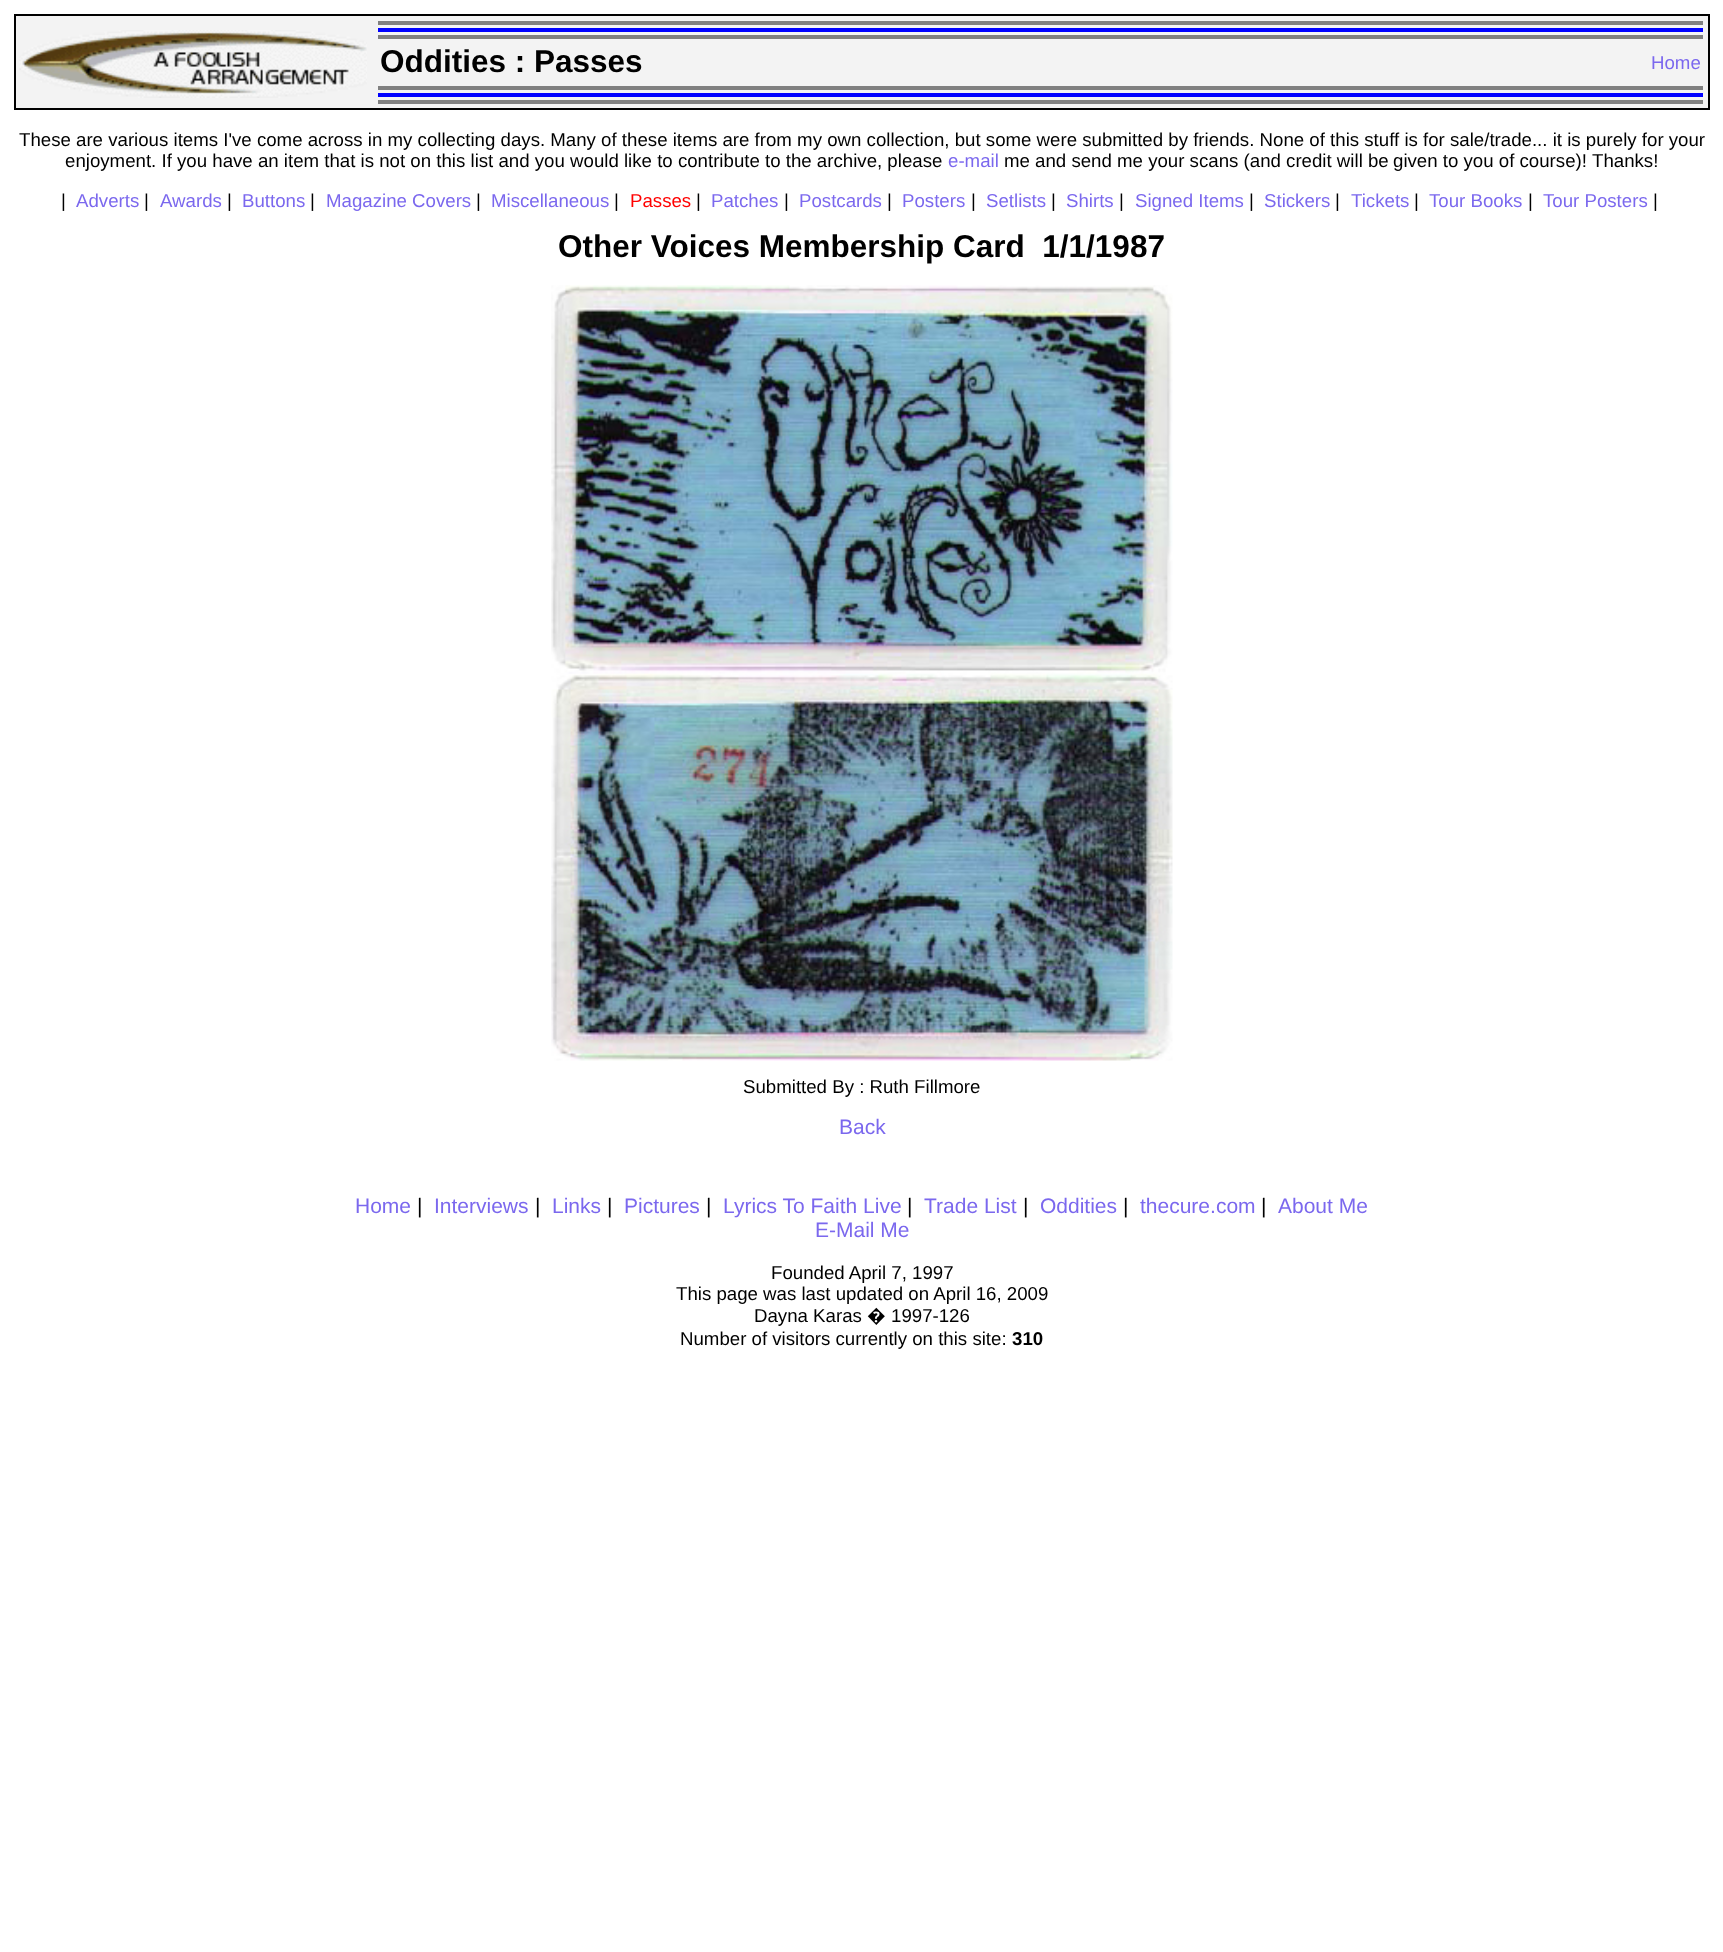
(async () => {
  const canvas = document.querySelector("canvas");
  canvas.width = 1723;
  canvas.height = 1952;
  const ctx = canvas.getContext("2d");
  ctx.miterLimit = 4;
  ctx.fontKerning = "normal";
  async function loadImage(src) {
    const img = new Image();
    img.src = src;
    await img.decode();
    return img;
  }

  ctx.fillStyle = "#ffffff";
  ctx.fillRect(0, 0, 1723, 1952);
  ctx.fillStyle = "#f3f3f3";
  ctx.beginPath();
  ctx.rect(15, 15, 1694, 94);
  ctx.fill();
  ctx.strokeStyle = "#000000";
  ctx.lineWidth = 2;
  ctx.stroke();
  ctx.drawImage(await loadImage("img/1.png"), 19, 30, 348, 68);
  for (const [x, y, w, h, color] of [
    [378, 21, 1325, 4, "#808080"],
    [378, 28, 1325, 4, "#0000ff"],
    [378, 35, 1325, 4, "#808080"],
    [378, 86, 1325, 4, "#808080"],
    [378, 93, 1325, 4, "#0000ff"],
    [378, 100, 1325, 4, "#808080"],
  ]) {
    ctx.fillStyle = color;
    ctx.fillRect(x, y, w, h);
  }
  ctx.drawImage(await loadImage("img/2.png"), 551, 285, 622, 776);
  ctx.font = "bold 31.5px Liberation Sans";
  ctx.fillStyle = "#000000";
  ctx.fillText("Oddities : Passes", 380, 72);
  ctx.font = "18.67px Liberation Sans";
  ctx.fillStyle = "#7b68ee";
  ctx.fillText("Home", 1651, 69);
  ctx.fillStyle = "#000000";
  ctx.fillText("These are various items I've come across in my collecting days. Many of these items are from my own collection, but some were submitted by friends. None of this stuff is for sale/trade... it is purely for your", 19, 146);
  ctx.fillText("enjoyment. If you have an item that is not on this list and you would like to contribute to the archive, please", 65, 167);
  ctx.fillStyle = "#7b68ee";
  ctx.fillText("e-mail", 948, 167);
  ctx.fillStyle = "#000000";
  for (const [text, x, y] of [
    ["me and send me your scans (and credit will be", 1004, 167],
    ["given to you of course)!", 1393, 167],
    ["Thanks!", 1592, 167],
    ["|", 61, 207],
  ]) {
    ctx.fillText(text, x, y);
  }
  ctx.fillStyle = "#7b68ee";
  ctx.fillText("Adverts", 76, 207);
  ctx.fillStyle = "#000000";
  ctx.fillText("|", 144, 207);
  ctx.fillStyle = "#7b68ee";
  ctx.fillText("Awards", 160, 207);
  ctx.fillStyle = "#000000";
  ctx.fillText("|", 227, 207);
  ctx.fillStyle = "#7b68ee";
  ctx.fillText("Buttons", 242, 207);
  ctx.fillStyle = "#000000";
  ctx.fillText("|", 310, 207);
  ctx.fillStyle = "#7b68ee";
  ctx.fillText("Magazine Covers", 326, 207);
  ctx.fillStyle = "#000000";
  ctx.fillText("|", 476, 207);
  ctx.fillStyle = "#7b68ee";
  ctx.fillText("Miscellaneous", 491, 207);
  ctx.fillStyle = "#000000";
  ctx.fillText("|", 614, 207);
  ctx.fillStyle = "#ff0000";
  ctx.fillText("Passes", 630, 207);
  ctx.fillStyle = "#000000";
  ctx.fillText("|", 696, 207);
  ctx.fillStyle = "#7b68ee";
  ctx.fillText("Patches", 711, 207);
  ctx.fillStyle = "#000000";
  ctx.fillText("|", 784, 207);
  ctx.fillStyle = "#7b68ee";
  ctx.fillText("Postcards", 799, 207);
  ctx.fillStyle = "#000000";
  ctx.fillText("|", 887, 207);
  ctx.fillStyle = "#7b68ee";
  ctx.fillText("Posters", 902, 207);
  ctx.fillStyle = "#000000";
  ctx.fillText("|", 971, 207);
  ctx.fillStyle = "#7b68ee";
  ctx.fillText("Setlists", 986, 207);
  ctx.fillStyle = "#000000";
  ctx.fillText("|", 1051, 207);
  ctx.fillStyle = "#7b68ee";
  ctx.fillText("Shirts", 1066, 207);
  ctx.fillStyle = "#000000";
  ctx.fillText("|", 1119, 207);
  ctx.fillStyle = "#7b68ee";
  ctx.fillText("Signed Items", 1135, 207);
  ctx.fillStyle = "#000000";
  ctx.fillText("|", 1249, 207);
  ctx.fillStyle = "#7b68ee";
  ctx.fillText("Stickers", 1264, 207);
  ctx.fillStyle = "#000000";
  ctx.fillText("|", 1335, 207);
  ctx.fillStyle = "#7b68ee";
  ctx.fillText("Tickets", 1351, 207);
  ctx.fillStyle = "#000000";
  ctx.fillText("|", 1414, 207);
  ctx.fillStyle = "#7b68ee";
  ctx.fillText("Tour Books", 1429, 207);
  ctx.fillStyle = "#000000";
  ctx.fillText("|", 1528, 207);
  ctx.fillStyle = "#7b68ee";
  ctx.fillText("Tour Posters", 1543, 207);
  ctx.fillStyle = "#000000";
  ctx.fillText("|", 1653, 207);
  ctx.font = "bold 31.5px Liberation Sans";
  ctx.fillText("Other Voices Membership Card  1/1/1987", 558, 257);
  ctx.font = "18.67px Liberation Sans";
  ctx.fillText("Submitted By : Ruth Fillmore", 743, 1093);
  ctx.font = "21px Liberation Sans";
  ctx.fillStyle = "#7b68ee";
  ctx.fillText("Back", 839, 1134);
  ctx.fillText("Home", 355, 1213);
  ctx.fillStyle = "#000000";
  ctx.fillText("|", 417, 1213);
  ctx.fillStyle = "#7b68ee";
  ctx.fillText("Interviews", 434, 1213);
  ctx.fillStyle = "#000000";
  ctx.fillText("|", 535, 1213);
  ctx.fillStyle = "#7b68ee";
  ctx.fillText("Links", 552, 1213);
  ctx.fillStyle = "#000000";
  ctx.fillText("|", 607, 1213);
  ctx.fillStyle = "#7b68ee";
  ctx.fillText("Pictures", 624, 1213);
  ctx.fillStyle = "#000000";
  ctx.fillText("|", 706, 1213);
  ctx.fillStyle = "#7b68ee";
  ctx.fillText("Lyrics To Faith Live", 723, 1213);
  ctx.fillStyle = "#000000";
  ctx.fillText("|", 907, 1213);
  ctx.fillStyle = "#7b68ee";
  ctx.fillText("Trade List", 924, 1213);
  ctx.fillStyle = "#000000";
  ctx.fillText("|", 1023, 1213);
  ctx.fillStyle = "#7b68ee";
  ctx.fillText("Oddities", 1040, 1213);
  ctx.fillStyle = "#000000";
  ctx.fillText("|", 1123, 1213);
  ctx.fillStyle = "#7b68ee";
  ctx.fillText("thecure.com", 1140, 1213);
  ctx.fillStyle = "#000000";
  ctx.fillText("|", 1261, 1213);
  ctx.fillStyle = "#7b68ee";
  ctx.fillText("About Me", 1278, 1213);
  ctx.fillText("E-Mail Me", 815, 1237);
  ctx.font = "18.67px Liberation Sans";
  ctx.fillStyle = "#000000";
  for (const [text, x, y] of [
    ["Founded April 7, 1997", 771, 1279],
    ["This page was last updated on April 16, 2009", 676, 1300],
    ["Dayna Karas", 754, 1322],
  ]) {
    ctx.fillText(text, x, y);
  }
  ctx.font = "18.67px Noto Sans";
  ctx.fillText("�", 867, 1322);
  ctx.font = "18.67px Liberation Sans";
  ctx.fillText("1997-126", 891, 1322);
  ctx.fillText("Number of visitors currently on this site:", 680, 1345);
  ctx.font = "bold 18.67px Liberation Sans";
  ctx.fillText("310", 1012, 1345);
})();
